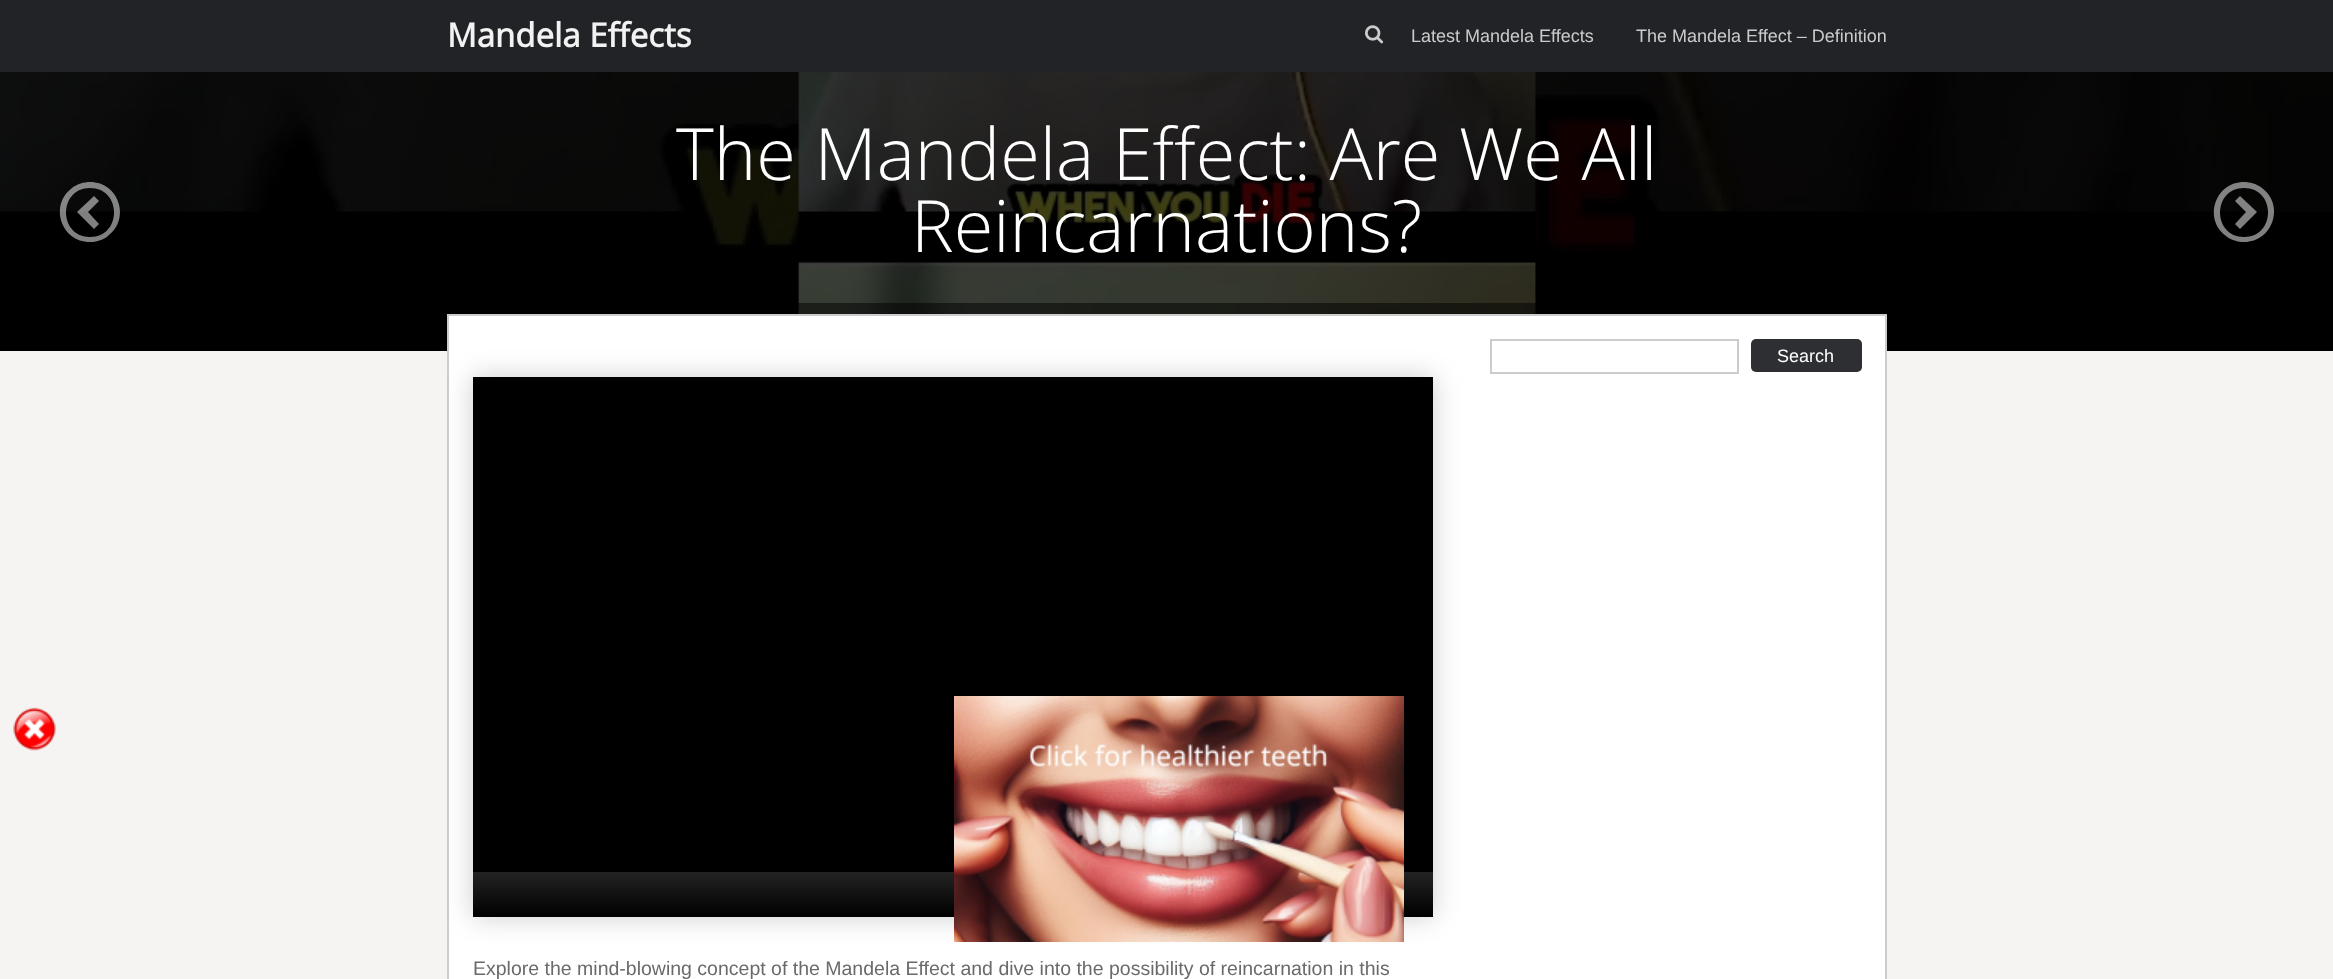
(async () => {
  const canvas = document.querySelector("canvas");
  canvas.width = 2333;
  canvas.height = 979;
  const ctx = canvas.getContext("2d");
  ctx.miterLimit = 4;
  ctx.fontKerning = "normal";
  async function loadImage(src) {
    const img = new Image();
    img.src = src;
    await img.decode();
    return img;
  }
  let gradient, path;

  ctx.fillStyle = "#f6f4f2";
  ctx.fillRect(0, 0, 2333, 979);
  ctx.fillStyle = "#212326";
  ctx.fillRect(0, 0, 2333, 72);
  ctx.drawImage(await loadImage("img/1.png"), 1365, 25, 19, 19);
  ctx.drawImage(await loadImage("img/2.png"), 0, 72, 2333, 279);
  ctx.fillStyle = "rgba(255, 255, 255, 0.5)";
  path = new Path2D("M90 242C96 242 103 240 108 236C131 219 119 182 90 182C84 182 77 184 72 188C49 205 61 242 90 242ZM90 188C122 188 122 237 90 237C58 237 58 188 90 188ZM99 201L94 196L77 212L94 229L99 224L88 212Z");
  ctx.fill(path);
  path = new Path2D("M2244 182C2215 182 2203 219 2226 236C2231 240 2238 242 2244 242C2273 242 2285 205 2262 188C2257 184 2250 182 2244 182ZM2244 237C2212 237 2212 188 2244 188C2276 188 2276 237 2244 237ZM2235 224L2240 229L2257 212L2240 196L2235 201L2246 212Z");
  ctx.fill(path);
  ctx.fillStyle = "rgba(0, 0, 0, 0.5)";
  ctx.fillRect(798, 303, 738, 11);
  ctx.fillStyle = "#ffffff";
  ctx.beginPath();
  ctx.rect(448, 315, 1438, 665);
  ctx.fill();
  ctx.strokeStyle = "#cccccc";
  ctx.lineWidth = 2;
  ctx.stroke();
  ctx.strokeRect(1491, 340, 247, 33);
  ctx.fillStyle = "#2d2f33";
  ctx.beginPath();
  ctx.roundRect(1751, 339, 111, 33, 5);
  ctx.fill();
  ctx.fillStyle = "rgba(0, 0, 0, 0.2)";
  ctx.filter = "blur(13.5px)";
  ctx.beginPath();
  ctx.rect(473, 377, 960, 540);
  ctx.fill();
  ctx.filter = "none";
  ctx.fillStyle = "#000000";
  ctx.fillRect(473, 377, 960, 495);
  gradient = ctx.createLinearGradient(953, 872, 953, 917);
  gradient.addColorStop(0, "#232323");
  gradient.addColorStop(1, "#000000");
  ctx.fillStyle = gradient;
  ctx.fillRect(473, 872, 960, 45);
  ctx.drawImage(await loadImage("img/3.png"), 13, 707, 43, 44);
  ctx.drawImage(await loadImage("img/4.png"), 954, 696, 450, 246);
  ctx.font = "bold 33px Open Sans";
  ctx.fillStyle = "#f2f2f2";
  ctx.fillText("Mandela Effects", 447, 47);
  ctx.font = "18px Liberation Sans";
  ctx.fillStyle = "#cbcbcb";
  ctx.fillText("Latest Mandela Effects", 1411, 42);
  ctx.fillText("The Mandela Effect – Definition", 1636, 42);
  ctx.font = "300 72px Open Sans";
  ctx.fillStyle = "#ffffff";
  ctx.fillText("The Mandela Effect: Are We All", 676, 180);
  ctx.fillText("Reincarnations?", 911, 252);
  ctx.font = "18px Liberation Sans";
  ctx.fillText("Search", 1777, 362);
  ctx.font = "19.5px Liberation Sans";
  ctx.fillStyle = "#6a6a6a";
  ctx.fillText("Explore the mind-blowing concept of the Mandela Effect and dive into the possibility of reincarnation in this", 473, 975);
})();
